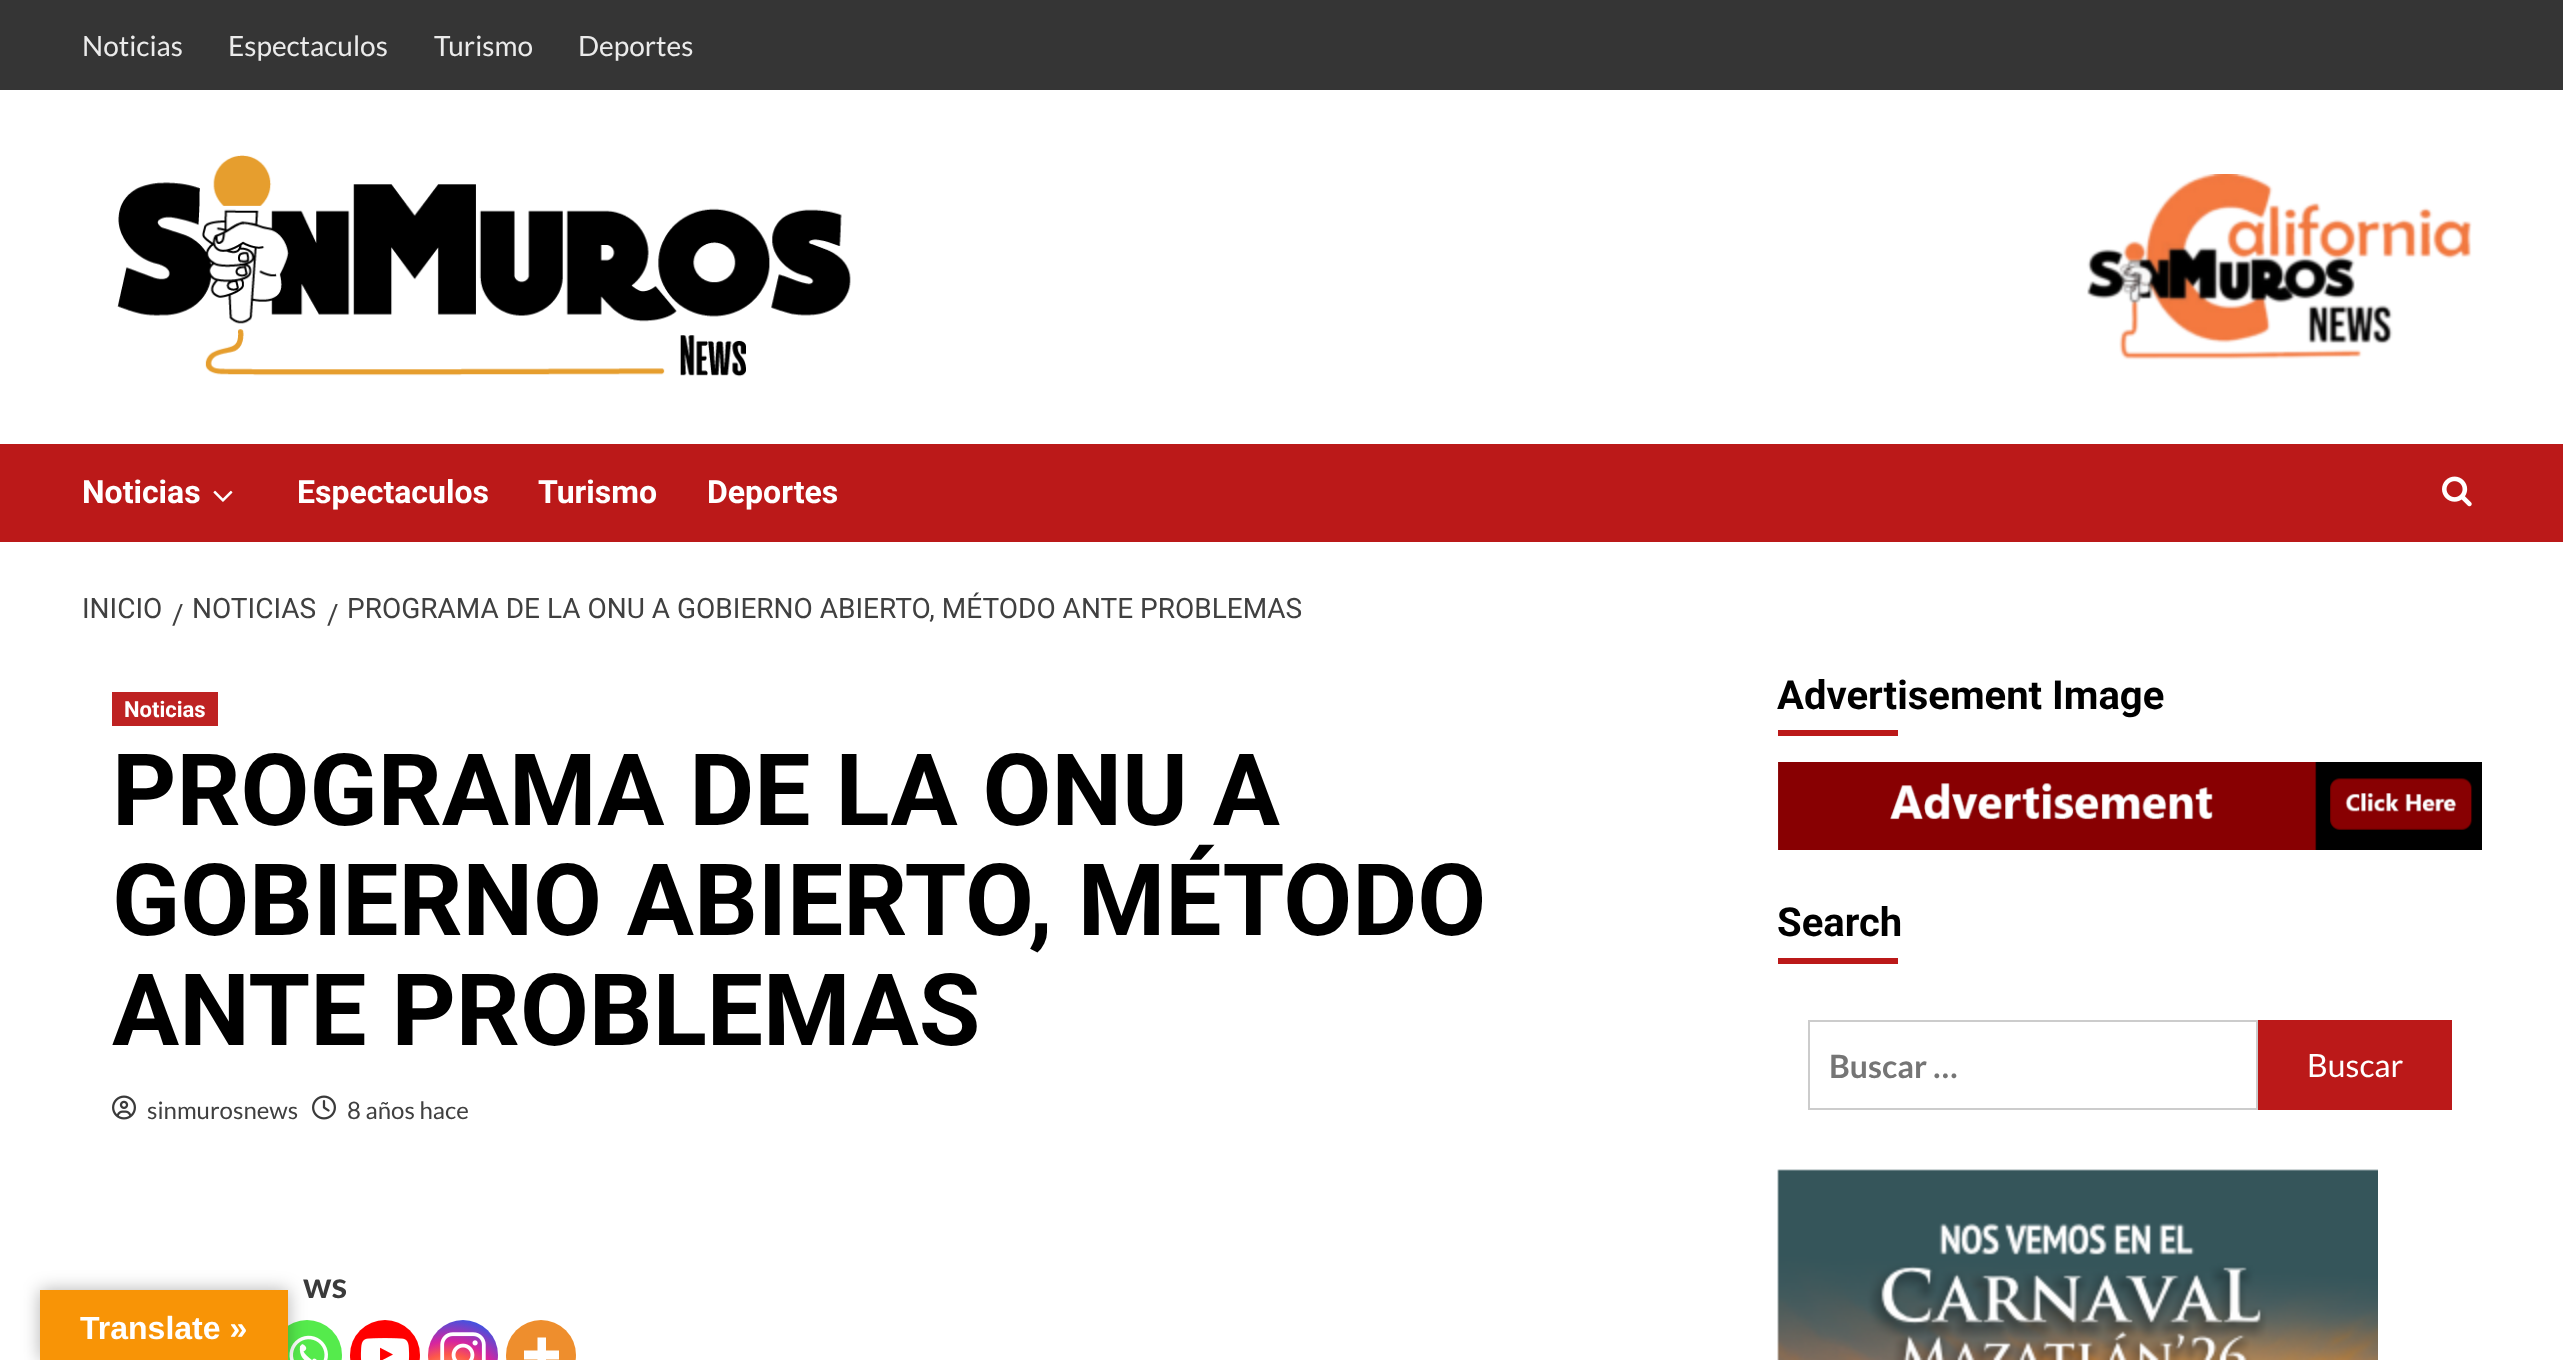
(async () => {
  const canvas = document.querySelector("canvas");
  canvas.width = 2563;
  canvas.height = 1360;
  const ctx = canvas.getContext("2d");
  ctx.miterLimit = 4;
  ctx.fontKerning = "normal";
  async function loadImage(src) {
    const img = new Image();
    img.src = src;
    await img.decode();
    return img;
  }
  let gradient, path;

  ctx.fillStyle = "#ffffff";
  ctx.fillRect(0, 0, 2563, 1360);
  ctx.fillStyle = "#353535";
  ctx.fillRect(0, 0, 2563, 90);
  ctx.drawImage(await loadImage("img/1.png"), 117, 155, 734, 222);
  ctx.drawImage(await loadImage("img/2.png"), 2087, 174, 385, 186);
  ctx.fillStyle = "#bb1919";
  ctx.fillRect(0, 444, 2563, 98);
  ctx.drawImage(await loadImage("img/3.png"), 213, 490, 20, 12);
  ctx.drawImage(await loadImage("img/4.png"), 2442, 476, 30, 31);
  ctx.fillStyle = "#be2222";
  ctx.fillRect(112, 692, 106, 34);
  ctx.drawImage(await loadImage("img/5.png"), 112, 1095, 24, 25);
  ctx.drawImage(await loadImage("img/6.png"), 312, 1095, 24, 25);
  ctx.fillStyle = "#55eb4c";
  ctx.beginPath();
  ctx.arc(307, 1355, 35, 0, Math.PI * 2);
  ctx.fill();
  ctx.drawImage(await loadImage("img/7.png"), 289, 1335, 39, 25);
  ctx.fillStyle = "#ff0000";
  ctx.beginPath();
  ctx.arc(385, 1355, 35, 0, Math.PI * 2);
  ctx.fill();
  ctx.drawImage(await loadImage("img/8.png"), 360, 1338, 50, 22);
  gradient = ctx.createRadialGradient(449, 1395, 0, 449, 1395, 90);
  gradient.addColorStop(0, "#fdf497");
  gradient.addColorStop(0.05, "#fdf497");
  gradient.addColorStop(0.45, "#fd5949");
  gradient.addColorStop(0.6, "#d6249f");
  gradient.addColorStop(0.9, "#285aeb");
  ctx.fillStyle = gradient;
  ctx.beginPath();
  ctx.arc(463, 1355, 35, 0, Math.PI * 2);
  ctx.fill();
  ctx.drawImage(await loadImage("img/9.png"), 440, 1332, 46, 28);
  ctx.fillStyle = "#ee8e2d";
  ctx.beginPath();
  ctx.arc(541, 1355, 35, 0, Math.PI * 2);
  ctx.fill();
  ctx.fillStyle = "#ffffff";
  path = new Path2D("M546 1350.5V1337.5H537.5V1350.5H524V1359.5H537.5V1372.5H546V1359.5H559V1350.5Z");
  ctx.fill(path, "evenodd");
  ctx.fillStyle = "#bb1919";
  ctx.fillRect(1778, 730, 120, 6);
  ctx.drawImage(await loadImage("img/10.png"), 1778, 762, 704, 88);
  ctx.fillRect(1778, 958, 120, 6);
  ctx.strokeStyle = "#cccccc";
  ctx.lineWidth = 2;
  ctx.strokeRect(1809, 1021, 448, 88);
  ctx.fillRect(2258, 1020, 194, 90);
  ctx.drawImage(await loadImage("img/11.png"), 1777, 1169, 601, 191);
  ctx.fillStyle = "rgba(0, 0, 0, 0.3)";
  ctx.filter = "blur(9px)";
  ctx.beginPath();
  ctx.rect(40, 1290, 248, 70);
  ctx.fill();
  ctx.filter = "none";
  ctx.fillStyle = "#f89406";
  ctx.fillRect(40, 1290, 248, 70);
  ctx.font = "28px Lato";
  ctx.fillStyle = "#ebebeb";
  for (const [text, x, y] of [
    ["Noticias", 82, 56],
    ["Espectaculos", 228, 56],
    ["Turismo", 434, 56],
    ["Deportes", 578, 56],
  ]) {
    ctx.fillText(text, x, y);
  }
  ctx.font = "bold 32px Roboto";
  ctx.fillStyle = "#ffffff";
  for (const [text, x, y] of [
    ["Noticias", 82, 503],
    ["Espectaculos", 297, 503],
    ["Turismo", 538, 503],
    ["Deportes", 707, 503],
  ]) {
    ctx.fillText(text, x, y);
  }
  ctx.font = "28px Roboto";
  ctx.fillStyle = "#404040";
  for (const [text, x, y] of [
    ["INICIO", 82, 618],
    ["/", 172, 624],
    ["NOTICIAS", 192, 618],
    ["/", 327, 624],
    ["PROGRAMA DE LA ONU A GOBIERNO ABIERTO, MÉTODO ANTE PROBLEMAS", 347, 618],
  ]) {
    ctx.fillText(text, x, y);
  }
  ctx.font = "bold 22px Roboto";
  ctx.fillStyle = "#ffffff";
  ctx.fillText("Noticias", 124, 717);
  ctx.font = "bold 100px Roboto";
  ctx.fillStyle = "#000000";
  for (const [text, x, y] of [
    ["PROGRAMA DE LA ONU A", 112, 825],
    ["GOBIERNO ABIERTO, MÉTODO", 112, 935],
    ["ANTE PROBLEMAS", 112, 1045],
  ]) {
    ctx.fillText(text, x, y);
  }
  ctx.font = "24px Lato";
  ctx.fillStyle = "#404040";
  ctx.fillText("sinmurosnews", 147, 1119);
  ctx.fillText("8 años hace", 347, 1119);
  ctx.font = "bold 36px Lato";
  ctx.fillStyle = "#3a3a3a";
  ctx.fillText("ws", 303, 1298);
  ctx.font = "bold 40px Roboto";
  ctx.fillStyle = "#000000";
  ctx.fillText("Advertisement Image", 1777, 709);
  ctx.fillText("Search", 1777, 936);
  ctx.font = "bold 32px Lato";
  ctx.fillStyle = "#757575";
  ctx.fillText("Buscar …", 1829, 1078);
  ctx.font = "32px Lato";
  ctx.fillStyle = "#ffffff";
  ctx.fillText("Buscar", 2307, 1077);
  ctx.font = "bold 32px Liberation Sans";
  ctx.fillText("Translate »", 80, 1339);
})();
